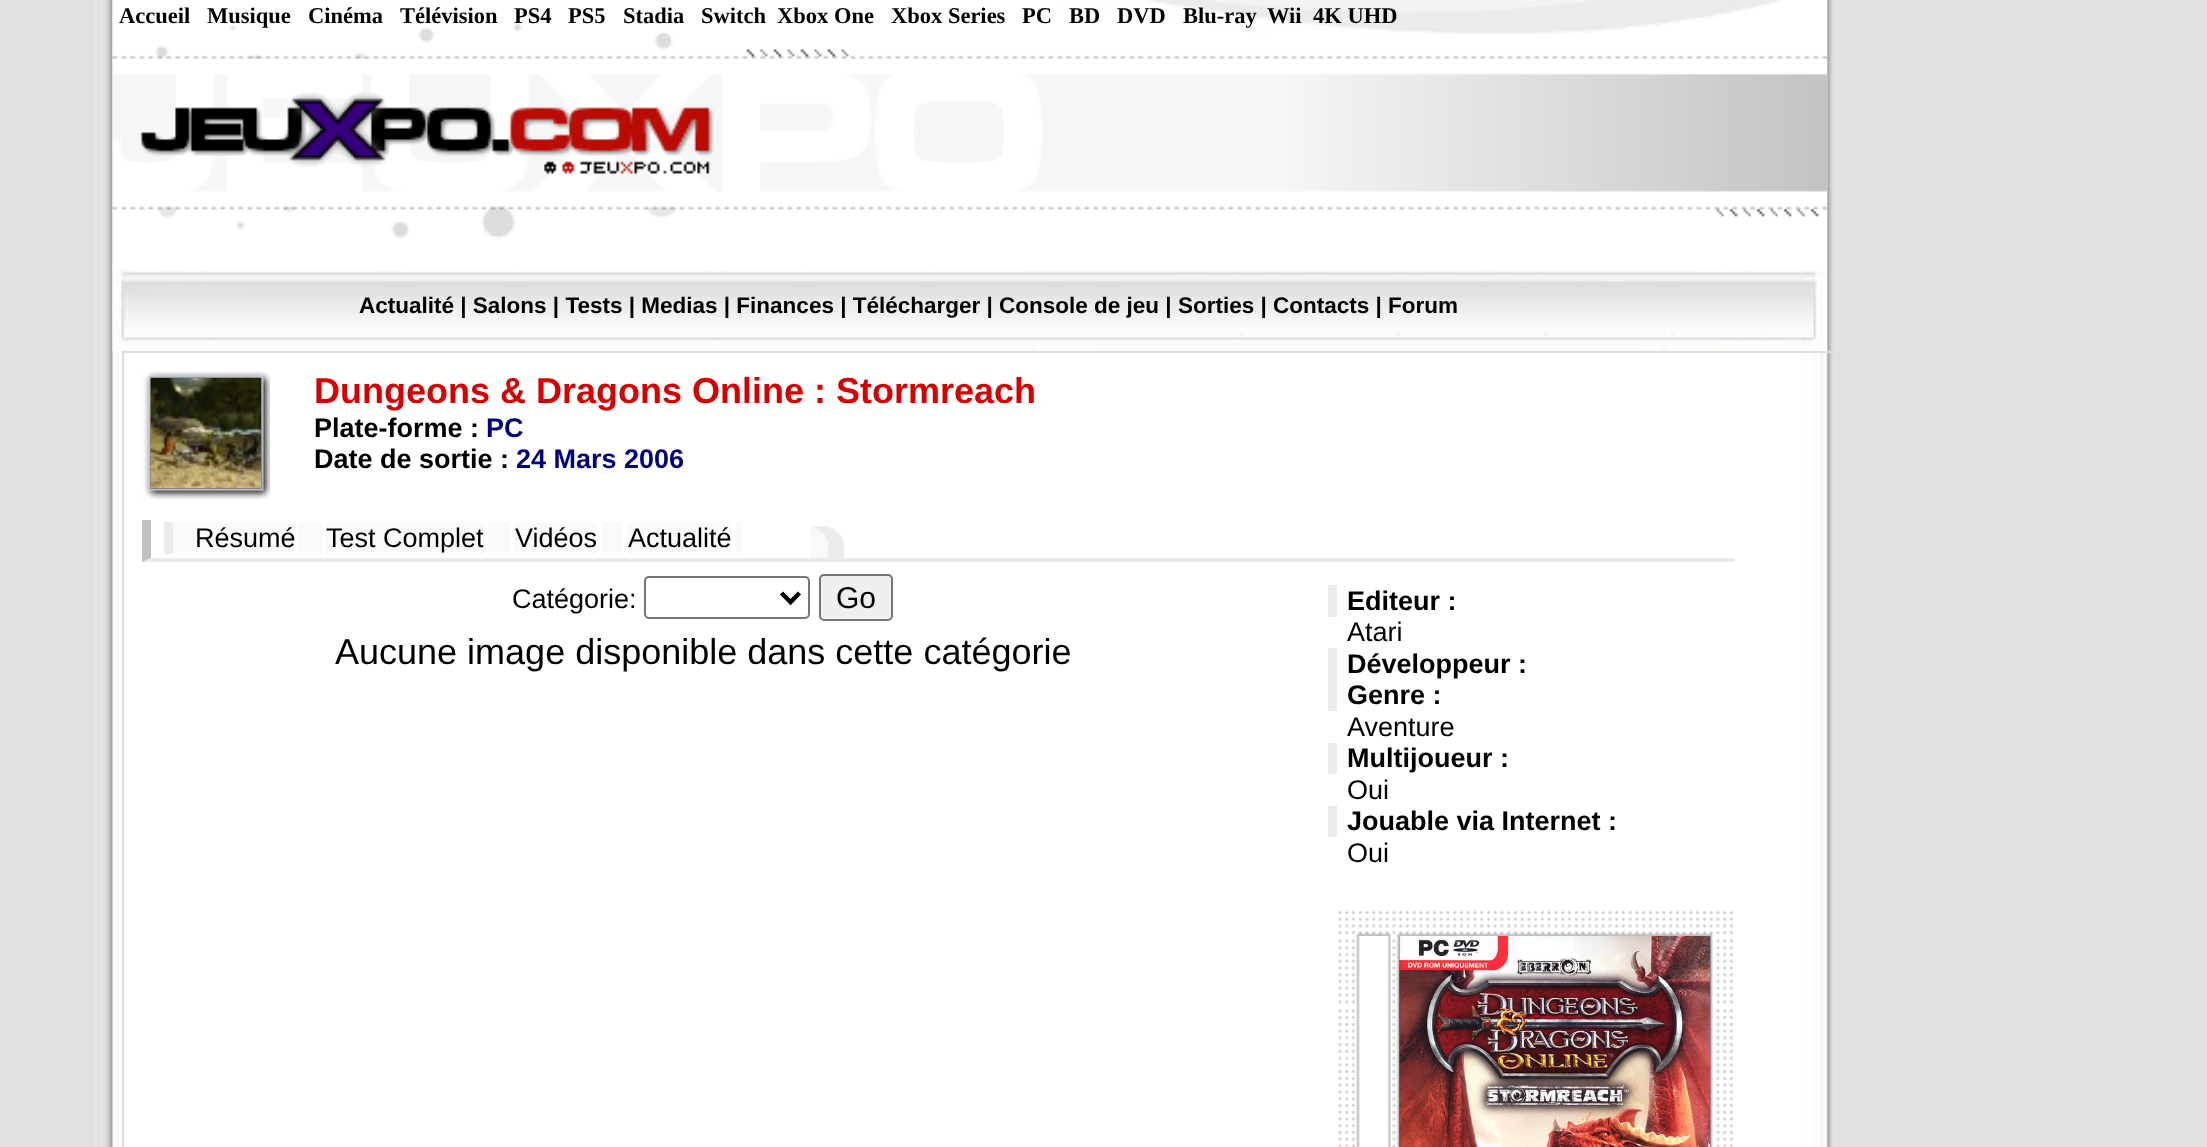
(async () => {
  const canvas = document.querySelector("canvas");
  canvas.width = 2207;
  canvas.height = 1147;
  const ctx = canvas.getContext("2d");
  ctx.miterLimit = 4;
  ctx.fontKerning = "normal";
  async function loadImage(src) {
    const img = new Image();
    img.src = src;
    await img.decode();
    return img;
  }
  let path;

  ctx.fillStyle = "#e1e1e1";
  ctx.fillRect(0, 0, 2207, 1147);
  ctx.drawImage(await loadImage("img/1.png"), 95, 0, 1738, 1147);
  ctx.drawImage(await loadImage("img/2.png"), 112, 0, 1715, 351);
  ctx.strokeStyle = "#dddddb";
  ctx.lineWidth = 2;
  ctx.strokeRect(123, 352, 1717, 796);
  ctx.drawImage(await loadImage("img/3.png"), 143, 371, 127, 129);
  ctx.drawImage(await loadImage("img/4.png"), 150, 378, 111, 111);
  ctx.fillStyle = "#ebebeb";
  path = new Path2D("M1735 562H142L151 558H1735Z");
  ctx.fill(path);
  ctx.fillStyle = "#c0c0c0";
  path = new Path2D("M142 562V520H151V558Z");
  ctx.fill(path);
  for (const [x, y, w, h, color] of [
    [173, 522, 122, 32, "#f9f9f9"],
    [164, 522, 9, 32, "#ebebeb"],
    [299, 522, 23, 32, "#f9f9f9"],
    [326, 522, 158, 32, "#f9f9f9"],
    [488, 522, 23, 32, "#f9f9f9"],
    [515, 522, 81, 32, "#f9f9f9"],
    [601, 522, 22, 32, "#f9f9f9"],
    [628, 522, 103, 32, "#f9f9f9"],
    [736, 522, 7, 32, "#f9f9f9"],
    [810, 527, 4, 31, "#f9f9f9"],
  ]) {
    ctx.fillStyle = color;
    ctx.fillRect(x, y, w, h);
  }
  ctx.drawImage(await loadImage("img/5.png"), 814, 526, 32, 32);
  ctx.beginPath();
  ctx.roundRect(645, 577, 164, 41, 4);
  ctx.strokeStyle = "#767676";
  ctx.stroke();
  path = new Path2D("M781.5 593L790.5 602L799.5 593");
  ctx.strokeStyle = "#000000";
  ctx.lineWidth = 4.5;
  ctx.stroke(path);
  ctx.fillStyle = "#efefef";
  ctx.beginPath();
  ctx.roundRect(820, 575, 72, 45, 4);
  ctx.fill();
  ctx.strokeStyle = "#767676";
  ctx.lineWidth = 2;
  ctx.stroke();
  for (const [x, y, w, h, color] of [
    [1328, 585, 9, 32, "#ebebeb"],
    [1328, 648, 9, 63, "#ebebeb"],
    [1328, 743, 9, 31, "#ebebeb"],
    [1328, 806, 9, 31, "#ebebeb"],
  ]) {
    ctx.fillStyle = color;
    ctx.fillRect(x, y, w, h);
  }
  ctx.drawImage(await loadImage("img/6.png"), 1338, 910, 396, 26);
  ctx.drawImage(await loadImage("img/7.png"), 1338, 936, 396, 211);
  ctx.drawImage(await loadImage("img/8.png"), 1399, 936, 311, 211);
  ctx.font = "bold 22.5px Liberation Serif";
  ctx.fillStyle = "#000000";
  for (const [text, x, y] of [
    ["Accueil", 119, 23],
    ["Musique", 207, 23],
    ["Cinéma", 308, 23],
    ["Télévision", 400, 23],
    ["PS4", 514, 23],
    ["PS5", 568, 23],
    ["Stadia", 623, 23],
    ["Switch", 701, 23],
    ["Xbox One", 777, 23],
    ["Xbox Series", 891, 23],
    ["PC", 1022, 23],
    ["BD", 1069, 23],
    ["DVD", 1117, 23],
    ["Blu-ray", 1183, 23],
    ["Wii", 1267, 23],
    ["4K UHD", 1313, 23],
  ]) {
    ctx.fillText(text, x, y);
  }
  ctx.font = "bold 22.5px Liberation Sans";
  ctx.fillText("Actualité | Salons | Tests | Medias | Finances | Télécharger | Console de jeu | Sorties | Contacts | Forum", 359, 313);
  ctx.font = "bold 36px Liberation Sans";
  ctx.fillStyle = "#d70000";
  ctx.fillText("Dungeons & Dragons Online : Stormreach", 314, 403);
  ctx.font = "bold 27px Liberation Sans";
  ctx.fillStyle = "#000000";
  ctx.fillText("Plate-forme :", 314, 437);
  ctx.fillStyle = "#000080";
  ctx.fillText("PC", 486, 437);
  ctx.fillStyle = "#000000";
  ctx.fillText("Date de sortie :", 314, 468);
  ctx.fillStyle = "#000080";
  ctx.fillText("24 Mars 2006", 516, 468);
  ctx.font = "27px Liberation Sans";
  ctx.fillStyle = "#000000";
  for (const [text, x, y] of [
    ["Résumé", 195, 547],
    ["Test Complet", 326, 547],
    ["Vidéos", 515, 547],
    ["Actualité", 628, 547],
    ["Catégorie:", 512, 608],
  ]) {
    ctx.fillText(text, x, y);
  }
  ctx.font = "30px Liberation Sans";
  ctx.fillText("Go", 836, 608);
  ctx.font = "bold 27px Liberation Sans";
  ctx.fillText("Editeur :", 1347, 610);
  ctx.font = "27px Liberation Sans";
  ctx.fillText("Atari", 1347, 641);
  ctx.font = "bold 27px Liberation Sans";
  ctx.fillText("Développeur :", 1347, 673);
  ctx.fillText("Genre :", 1347, 704);
  ctx.font = "27px Liberation Sans";
  ctx.fillText("Aventure", 1347, 736);
  ctx.font = "bold 27px Liberation Sans";
  ctx.fillText("Multijoueur :", 1347, 767);
  ctx.font = "27px Liberation Sans";
  ctx.fillText("Oui", 1347, 799);
  ctx.font = "bold 27px Liberation Sans";
  ctx.fillText("Jouable via Internet :", 1347, 830);
  ctx.font = "27px Liberation Sans";
  ctx.fillText("Oui", 1347, 862);
  ctx.font = "36px Liberation Sans";
  ctx.fillText("Aucune image disponible dans cette catégorie", 335, 664);
})();
